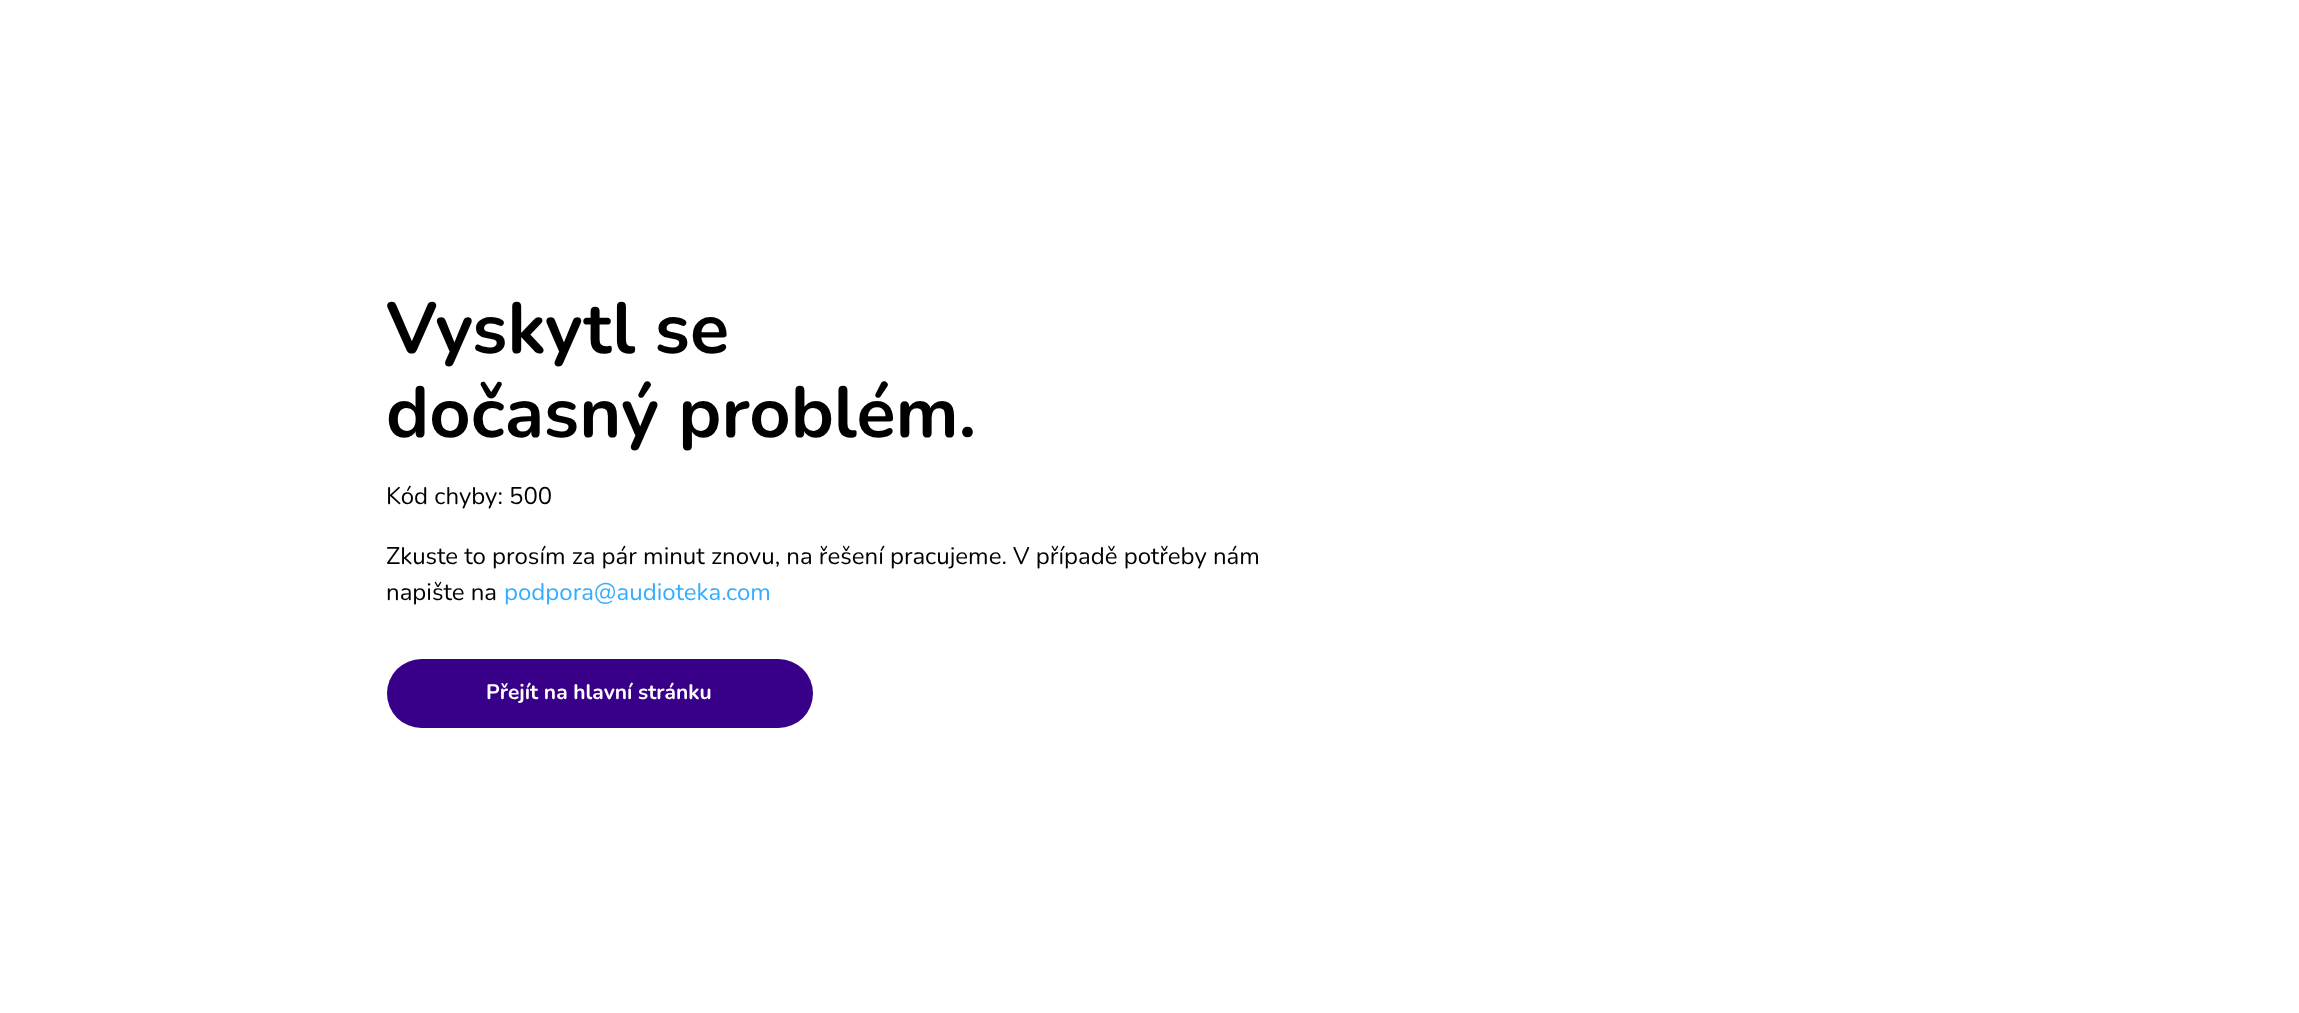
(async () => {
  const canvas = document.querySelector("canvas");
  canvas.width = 2299;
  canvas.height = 1013;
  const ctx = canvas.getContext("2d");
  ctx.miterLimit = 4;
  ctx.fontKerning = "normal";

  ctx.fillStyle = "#ffffff";
  ctx.fillRect(0, 0, 2299, 1013);
  ctx.fillStyle = "#380089";
  ctx.beginPath();
  ctx.roundRect(387, 659, 426, 69, 34.5);
  ctx.fill();
  ctx.font = "bold 72px Nunito";
  ctx.fillStyle = "#000000";
  ctx.fillText("Vyskytl se", 386, 353);
  ctx.fillText("dočasný problém.", 386, 437);
  ctx.font = "24px Nunito";
  for (const [text, x, y] of [
    ["Kód chyby: 500", 386, 504],
    ["Zkuste to prosím za pár minut znovu, na řešení pracujeme. V případě potřeby nám", 386, 564],
    ["napište na", 386, 600],
  ]) {
    ctx.fillText(text, x, y);
  }
  ctx.fillStyle = "#33adff";
  ctx.fillText("podpora@audioteka.com", 504, 600);
  ctx.font = "bold 21px Nunito";
  ctx.fillStyle = "#ffffff";
  ctx.fillText("Přejít na hlavní stránku", 486, 699);
})();
